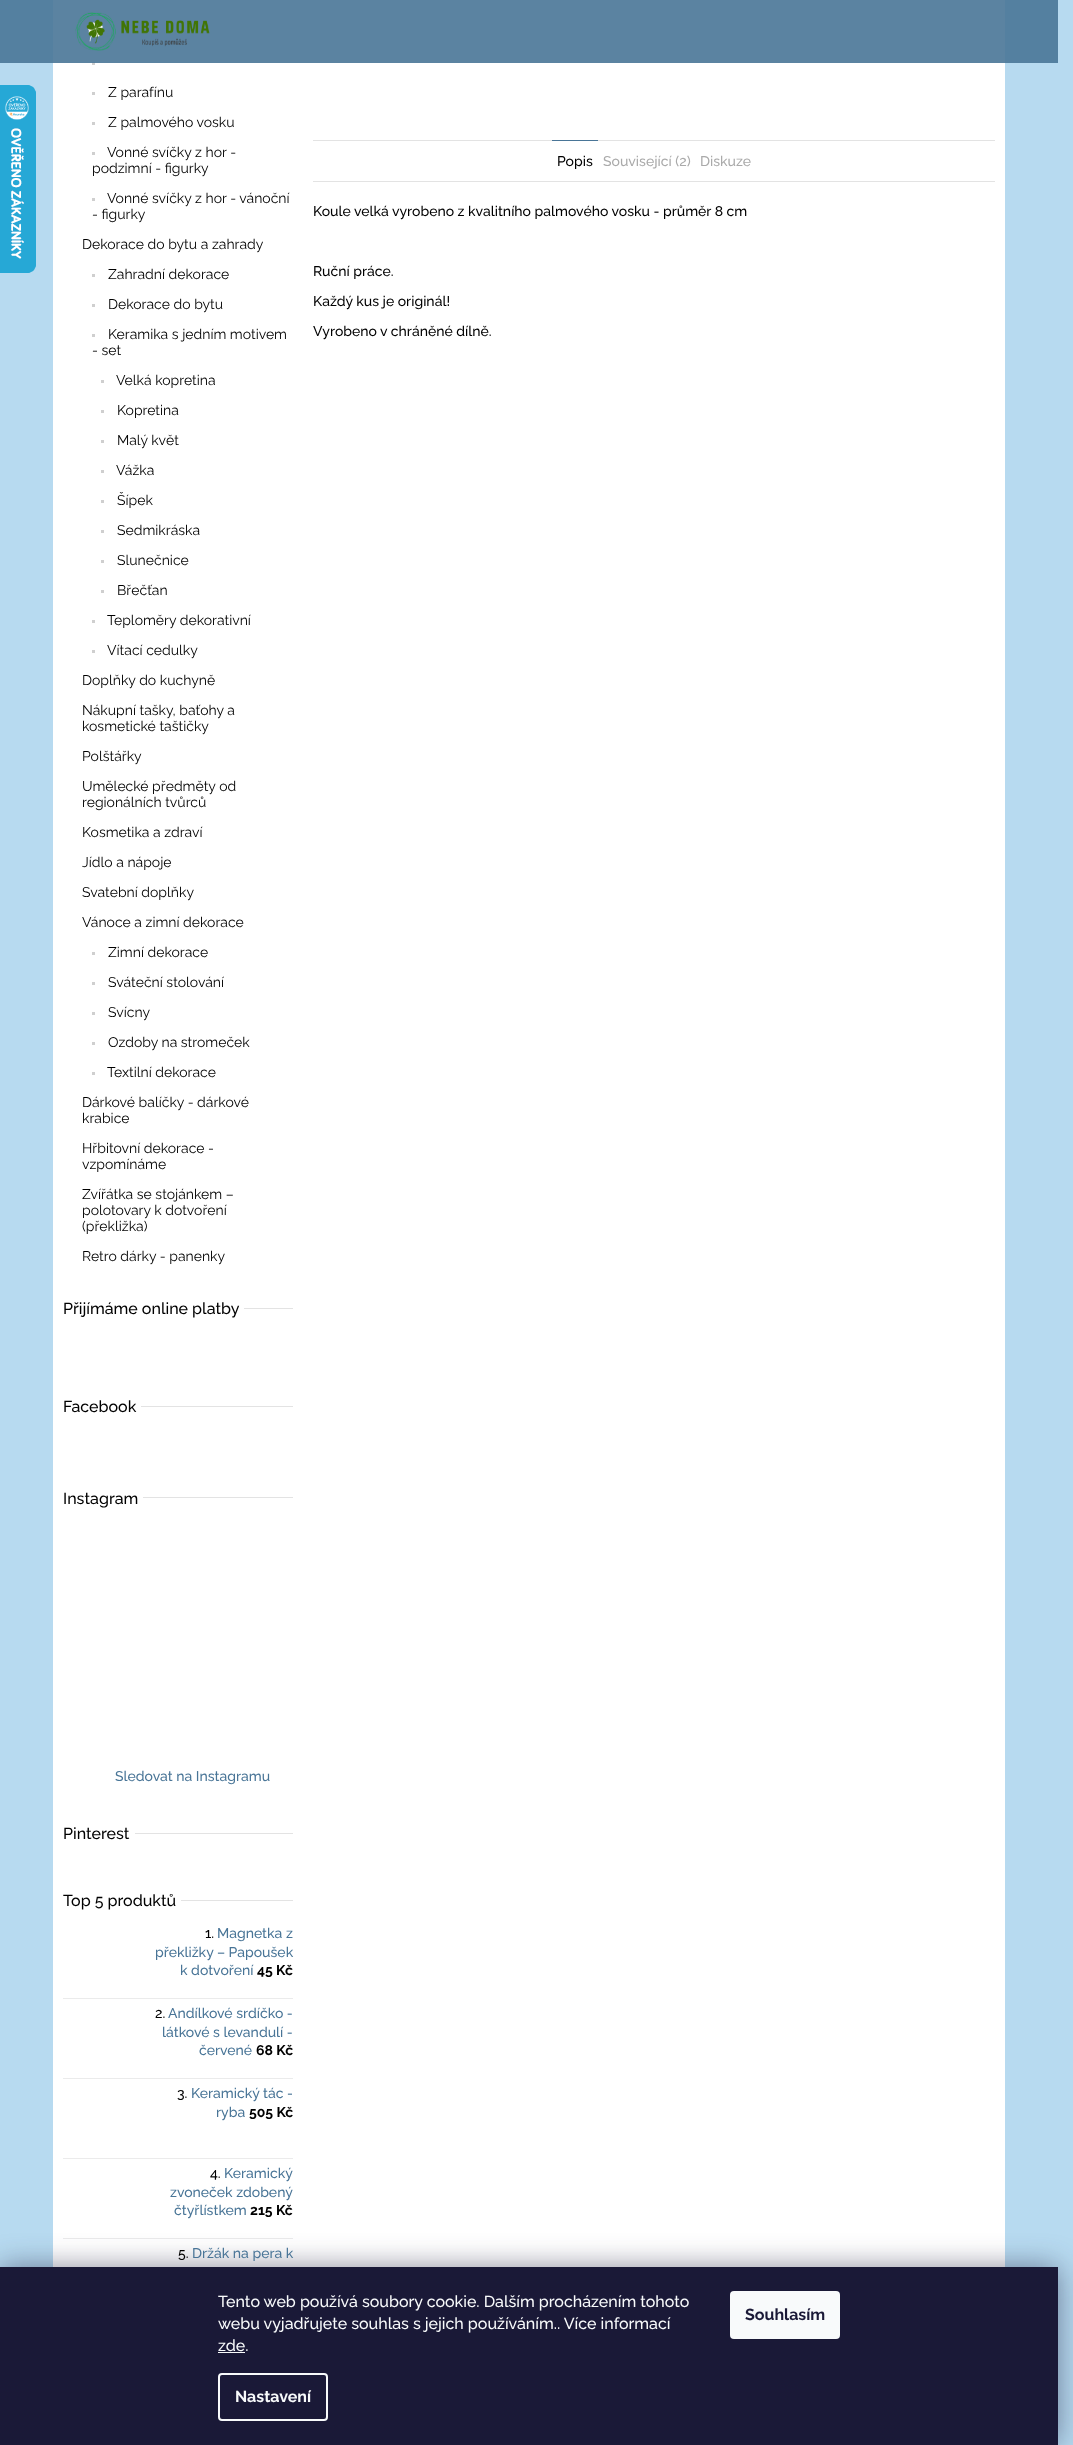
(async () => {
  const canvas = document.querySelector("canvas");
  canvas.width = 1073;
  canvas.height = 2445;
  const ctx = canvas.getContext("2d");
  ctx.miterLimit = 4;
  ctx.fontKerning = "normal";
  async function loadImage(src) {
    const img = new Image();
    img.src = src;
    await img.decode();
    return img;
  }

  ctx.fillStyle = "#b7daf0";
  ctx.fillRect(0, 0, 1073, 2445);
  ctx.drawImage(await loadImage("img/1.png"), 0, 85, 36, 188);
  for (const [x, y, w, h, color] of [
    [53, 0, 952, 2267, "#ffffff"],
    [92, 62, 3, 3, "#cfcfcf"],
    [0, 0, 1058, 63, "rgba(73, 117, 151, 0.9)"],
  ]) {
    ctx.fillStyle = color;
    ctx.fillRect(x, y, w, h);
  }
  ctx.drawImage(await loadImage("img/2.png"), 75, 12, 135, 39);
  for (const [x, y, w, h, color] of [
    [92, 92, 3, 3, "#cfcfcf"],
    [92, 122, 3, 3, "#cfcfcf"],
    [92, 152, 3, 3, "#cfcfcf"],
    [92, 198, 3, 3, "#cfcfcf"],
    [92, 274, 3, 3, "#cfcfcf"],
    [92, 304, 3, 3, "#cfcfcf"],
    [92, 334, 3, 3, "#cfcfcf"],
    [101, 380, 3, 3, "#cfcfcf"],
    [101, 410, 3, 3, "#cfcfcf"],
    [101, 440, 3, 3, "#cfcfcf"],
    [101, 470, 3, 3, "#cfcfcf"],
    [101, 500, 3, 3, "#cfcfcf"],
    [101, 530, 3, 3, "#cfcfcf"],
    [101, 560, 3, 3, "#cfcfcf"],
    [101, 590, 3, 3, "#cfcfcf"],
    [92, 620, 3, 3, "#cfcfcf"],
    [92, 650, 3, 3, "#cfcfcf"],
    [92, 952, 3, 3, "#cfcfcf"],
    [92, 982, 3, 3, "#cfcfcf"],
    [92, 1012, 3, 3, "#cfcfcf"],
    [92, 1042, 3, 3, "#cfcfcf"],
    [92, 1072, 3, 3, "#cfcfcf"],
    [244, 1308, 49, 1, "#e3e3e3"],
    [141, 1406, 152, 1, "#e3e3e3"],
    [143, 1497, 150, 1, "#e3e3e3"],
    [135, 1833, 158, 1, "#e3e3e3"],
    [181, 1900, 112, 1, "#e3e3e3"],
    [63, 1998, 230, 1, "#ebebeb"],
    [63, 2078, 230, 1, "#ebebeb"],
    [63, 2158, 230, 1, "#ebebeb"],
    [63, 2238, 230, 1, "#ebebeb"],
    [313, 140, 682, 1, "#e3e3e3"],
    [313, 181, 682, 1, "#e3e3e3"],
    [552, 140, 46, 1, "#497597"],
  ]) {
    ctx.fillStyle = color;
    ctx.fillRect(x, y, w, h);
  }
  ctx.fillStyle = "rgba(27, 25, 57, 0.5)";
  ctx.filter = "blur(15px)";
  ctx.beginPath();
  ctx.rect(0, 2267, 1058, 178);
  ctx.fill();
  ctx.filter = "none";
  ctx.fillStyle = "#1a1937";
  ctx.fillRect(0, 2267, 1058, 178);
  ctx.fillStyle = "#f8fafb";
  ctx.fillRect(218, 2352, 27, 1);
  ctx.beginPath();
  ctx.roundRect(219, 2374, 108, 46, 3);
  ctx.strokeStyle = "#f8fafb";
  ctx.lineWidth = 2;
  ctx.stroke();
  ctx.beginPath();
  ctx.roundRect(730, 2291, 110, 48, 4);
  ctx.fill();
  ctx.font = "100 14px Raleway";
  ctx.fillStyle = "#000000";
  for (const [text, x, y] of [
    ["Z parafínu", 108, 97],
    ["Z palmového vosku", 108, 127],
    ["Vonné svíčky z hor -", 107, 157],
    ["podzimní - figurky", 92, 173],
    ["Vonné svíčky z hor - vánoční", 107, 203],
    ["- figurky", 92, 219],
    ["Dekorace do bytu a zahrady", 82, 249],
    ["Zahradní dekorace", 108, 279],
    ["Dekorace do bytu", 108, 309],
    ["Keramika s jedním motivem", 108, 339],
    ["- set", 92, 355],
    ["Velká kopretina", 116, 385],
    ["Kopretina", 117, 415],
    ["Malý květ", 117, 445],
    ["Vážka", 116, 475],
    ["Šípek", 117, 505],
    ["Sedmikráska", 117, 535],
    ["Slunečnice", 117, 565],
    ["Břečťan", 117, 595],
    ["Teploměry dekorativní", 107, 625],
    ["Vítací cedulky", 107, 655],
    ["Doplňky do kuchyně", 82, 685],
    ["Nákupní tašky, baťohy a", 82, 715],
    ["kosmetické taštičky", 82, 731],
    ["Polštářky", 82, 761],
    ["Umělecké předměty od", 82, 791],
    ["regionálních tvůrců", 82, 807],
    ["Kosmetika a zdraví", 82, 837],
    ["Jídlo a nápoje", 82, 867],
    ["Svatební doplňky", 82, 897],
    ["Vánoce a zimní dekorace", 82, 927],
    ["Zimní dekorace", 108, 957],
    ["Sváteční stolování", 108, 987],
    ["Svícny", 108, 1017],
    ["Ozdoby na stromeček", 108, 1047],
    ["Textilní dekorace", 107, 1077],
    ["Dárkové balíčky - dárkové", 82, 1107],
    ["krabice", 82, 1123],
    ["Hřbitovní dekorace -", 82, 1153],
    ["vzpomínáme", 82, 1169],
    ["Zvířátka se stojánkem –", 82, 1199],
    ["polotovary k dotvoření", 82, 1215],
    ["(překližka)", 82, 1231],
    ["Retro dárky - panenky", 82, 1261],
  ]) {
    ctx.fillText(text, x, y);
  }
  ctx.font = "500 16px Raleway";
  for (const [text, x, y] of [
    ["Přijímáme online platby", 63, 1314],
    ["Facebook", 63, 1412],
    ["Instagram", 63, 1504],
  ]) {
    ctx.fillText(text, x, y);
  }
  ctx.font = "500 14px Raleway";
  ctx.fillStyle = "#497597";
  ctx.fillText("Sledovat na Instagramu", 115, 1781);
  ctx.font = "500 16px Raleway";
  ctx.fillStyle = "#000000";
  ctx.fillText("Pinterest", 63, 1839);
  ctx.fillText("Top 5 produktů", 63, 1906);
  ctx.font = "500 14px Raleway";
  ctx.fillText("1.", 205, 1938);
  ctx.fillStyle = "#497597";
  for (const [text, x, y] of [
    ["Magnetka z", 217, 1938],
    ["překližky – Papoušek", 155, 1957],
    ["k dotvoření", 180, 1975],
  ]) {
    ctx.fillText(text, x, y);
  }
  ctx.font = "bold 14px Raleway";
  ctx.fillStyle = "#000000";
  ctx.fillText("45 Kč", 257, 1975);
  ctx.font = "500 14px Raleway";
  ctx.fillText("2.", 155, 2018);
  ctx.fillStyle = "#497597";
  for (const [text, x, y] of [
    ["Andílkové srdíčko -", 168, 2018],
    ["látkové s levandulí -", 162, 2037],
    ["červené", 199, 2055],
  ]) {
    ctx.fillText(text, x, y);
  }
  ctx.font = "bold 14px Raleway";
  ctx.fillStyle = "#000000";
  ctx.fillText("68 Kč", 256, 2055);
  ctx.font = "500 14px Raleway";
  ctx.fillText("3.", 177, 2098);
  ctx.fillStyle = "#497597";
  ctx.fillText("Keramický tác -", 191, 2098);
  ctx.fillText("ryba", 216, 2117);
  ctx.font = "bold 14px Raleway";
  ctx.fillStyle = "#000000";
  ctx.fillText("505 Kč", 249, 2117);
  ctx.font = "500 14px Raleway";
  ctx.fillText("4.", 210, 2178);
  ctx.fillStyle = "#497597";
  for (const [text, x, y] of [
    ["Keramický", 224, 2178],
    ["zvoneček zdobený", 170, 2197],
    ["čtyřlístkem", 174, 2215],
  ]) {
    ctx.fillText(text, x, y);
  }
  ctx.font = "bold 14px Raleway";
  ctx.fillStyle = "#000000";
  ctx.fillText("215 Kč", 250, 2215);
  ctx.font = "500 14px Raleway";
  ctx.fillText("5.", 178, 2258);
  ctx.fillStyle = "#497597";
  ctx.fillText("Držák na pera k", 192, 2258);
  ctx.fillStyle = "#000000";
  ctx.fillText("Popis", 557, 166);
  ctx.fillStyle = "#aaaaaa";
  ctx.fillText("Související (2)", 603, 166);
  ctx.fillText("Diskuze", 700, 166);
  ctx.fillStyle = "#000000";
  for (const [text, x, y] of [
    ["Koule velká vyrobeno z kvalitního palmového vosku - průměr 8 cm", 313, 216],
    ["Ruční práce.", 313, 276],
    ["Každý kus je originál!", 313, 306],
    ["Vyrobeno v chráněné dílně.", 313, 336],
  ]) {
    ctx.fillText(text, x, y);
  }
  ctx.font = "500 16px Raleway";
  ctx.fillStyle = "#f8fafb";
  for (const [text, x, y] of [
    ["Tento web používá soubory cookie. Dalším procházením tohoto", 218, 2307],
    ["webu vyjadřujete souhlas s jejich používáním.. Více informací", 218, 2329],
    ["zde.", 218, 2351],
  ]) {
    ctx.fillText(text, x, y);
  }
  ctx.font = "bold 16px Raleway";
  ctx.fillText("Nastavení", 235, 2402);
  ctx.fillStyle = "#1a1937";
  ctx.fillText("Souhlasím", 745, 2320);
})();
